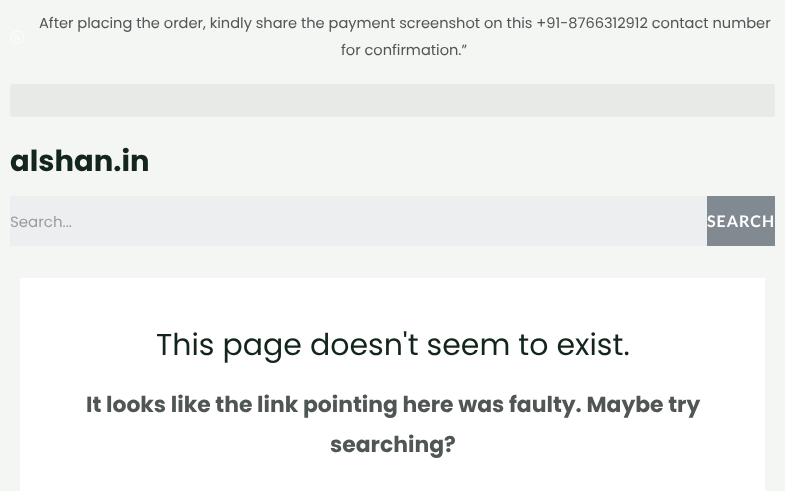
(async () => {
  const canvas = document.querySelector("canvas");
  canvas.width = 785;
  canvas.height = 491;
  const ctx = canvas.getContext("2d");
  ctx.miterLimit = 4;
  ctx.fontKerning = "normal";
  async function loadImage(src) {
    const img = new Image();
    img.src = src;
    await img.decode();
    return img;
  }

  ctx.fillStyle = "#f3f6f3";
  ctx.fillRect(0, 0, 785, 491);
  ctx.drawImage(await loadImage("img/1.png"), 10, 30, 15, 14);
  ctx.fillStyle = "#e7eae7";
  ctx.beginPath();
  ctx.roundRect(10, 84, 765, 33, 3);
  ctx.fill();
  for (const [x, y, w, h, color] of [
    [10, 196, 697, 50, "#eceeef"],
    [707, 196, 68, 50, "#818a91"],
    [20, 278, 745, 213, "#ffffff"],
  ]) {
    ctx.fillStyle = color;
    ctx.fillRect(x, y, w, h);
  }
  ctx.font = "14.6px Poppins";
  ctx.fillStyle = "#4f5655";
  ctx.fillText("After placing the order, kindly share the payment screenshot on this +91-8766312912 contact number", 39, 28);
  ctx.fillText("for confirmation.”", 341, 55);
  ctx.font = "bold 29px Poppins";
  ctx.fillStyle = "#14261c";
  ctx.fillText("alshan.in", 10, 171);
  ctx.font = "15px Poppins";
  ctx.fillStyle = "#9c9c9d";
  ctx.fillText("Search...", 10, 227);
  ctx.letterSpacing = "1px";
  ctx.font = "bold 16px Lato";
  ctx.fillStyle = "#ffffff";
  ctx.fillText("SEARCH", 707, 227);
  ctx.letterSpacing = "0px";
  ctx.font = "30px Poppins";
  ctx.fillStyle = "#14261c";
  ctx.fillText("This page doesn't seem to exist.", 156, 355);
  ctx.font = "bold 21.9px Poppins";
  ctx.fillStyle = "#4f5655";
  ctx.fillText("It looks like the link pointing here was faulty. Maybe try", 86, 412);
  ctx.fillText("searching?", 330, 452);
})();
